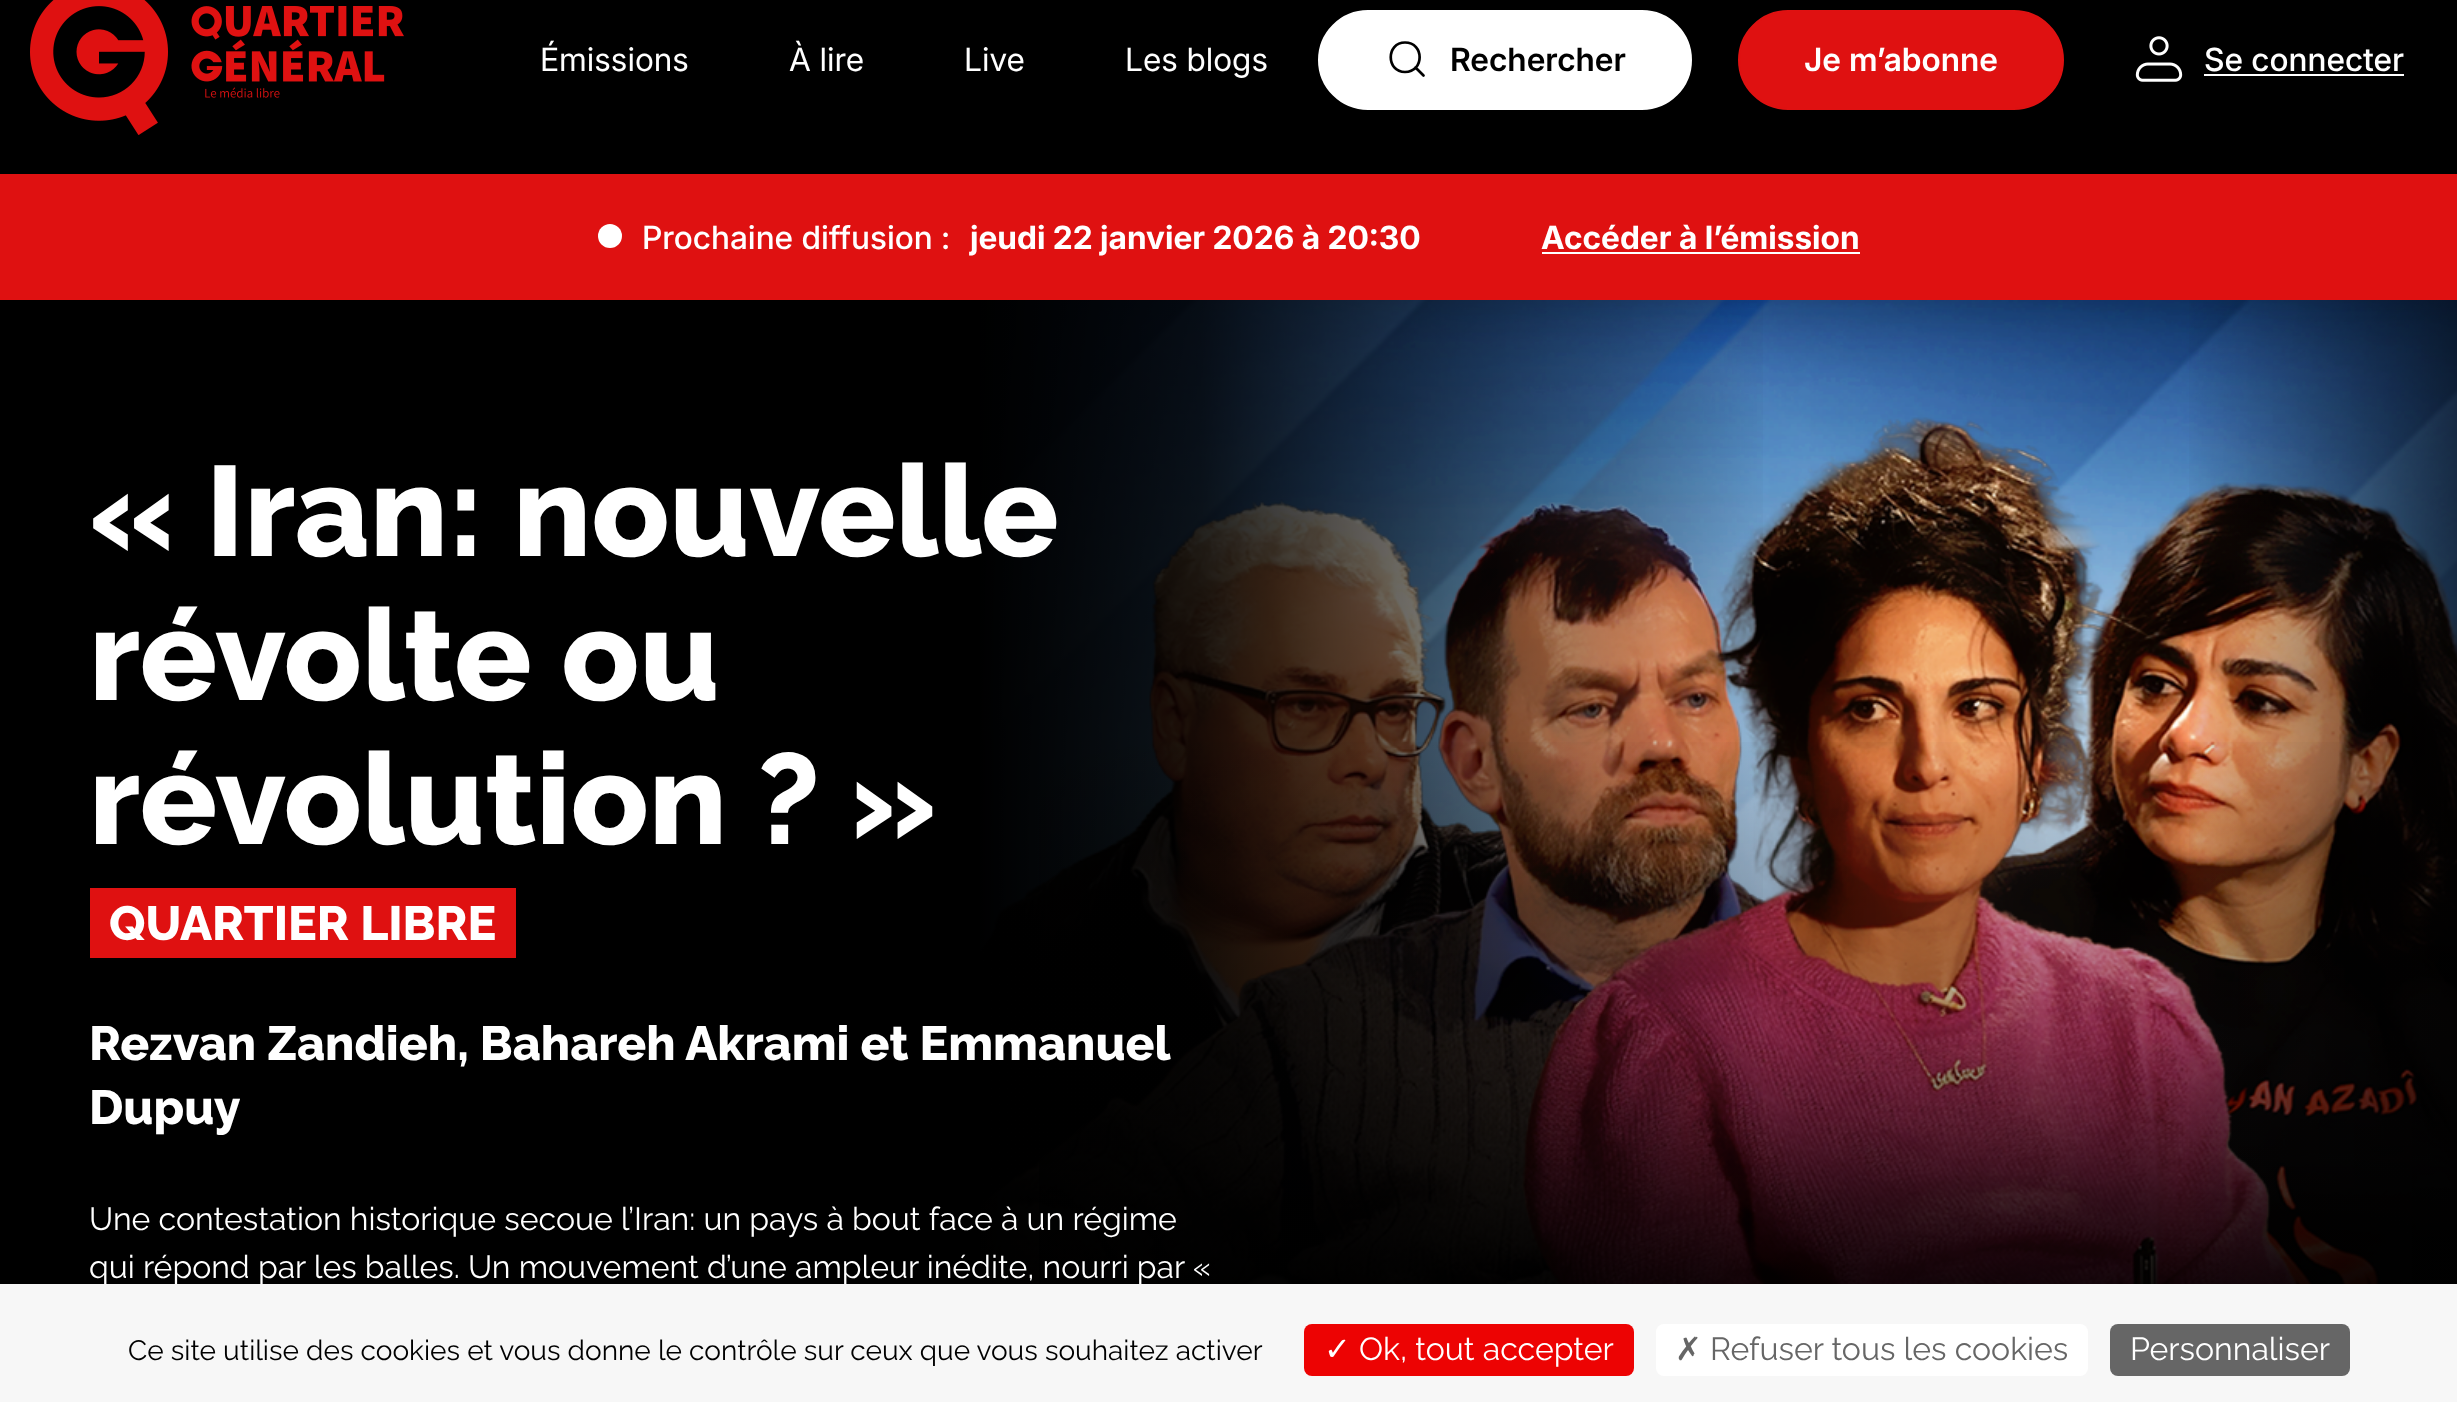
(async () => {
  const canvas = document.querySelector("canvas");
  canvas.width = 2457;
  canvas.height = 1402;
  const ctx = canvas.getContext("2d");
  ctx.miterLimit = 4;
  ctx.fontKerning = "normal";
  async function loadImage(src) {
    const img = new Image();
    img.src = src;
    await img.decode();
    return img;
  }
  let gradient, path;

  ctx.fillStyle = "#000000";
  ctx.fillRect(0, 0, 2457, 1402);
  ctx.drawImage(await loadImage("img/1.png"), 30, 0, 374, 135);
  ctx.fillStyle = "#ffffff";
  ctx.beginPath();
  ctx.roundRect(1319, 11, 372, 98, 49);
  ctx.fill();
  ctx.strokeStyle = "#ffffff";
  ctx.lineWidth = 2;
  ctx.stroke();
  path = new Path2D("M1405 72C1424.5 72 1424.5 42.5 1405 42.5C1386 42.5 1386 72 1405 72ZM1423.5 75.5L1415.5 67.5");
  ctx.strokeStyle = "#000000";
  ctx.lineWidth = 2.7;
  ctx.lineCap = "round";
  ctx.lineJoin = "round";
  ctx.stroke(path);
  ctx.fillStyle = "#df1111";
  ctx.beginPath();
  ctx.roundRect(1739, 11, 324, 98, 49);
  ctx.fill();
  ctx.strokeStyle = "#df1111";
  ctx.lineWidth = 2;
  ctx.lineJoin = "miter";
  ctx.stroke();
  ctx.drawImage(await loadImage("img/2.png"), 2135, 36, 48, 46);
  ctx.fillStyle = "#ffffff";
  ctx.fillRect(2204, 74, 200, 2);
  ctx.fillStyle = "#df1111";
  ctx.fillRect(0, 174, 2457, 126);
  ctx.fillStyle = "#ffffff";
  ctx.beginPath();
  ctx.arc(610, 236, 12, 0, Math.PI * 2);
  ctx.fill();
  ctx.fillRect(1542, 252, 318, 2);
  ctx.fillStyle = "#df1111";
  ctx.fillRect(90, 888, 426, 70);
  ctx.drawImage(await loadImage("img/3.png"), 980, 300, 1477, 984);
  gradient = ctx.createLinearGradient(-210, 960, 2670, 958);
  gradient.addColorStop(0.41, "#000000");
  gradient.addColorStop(0.49, "rgba(0, 0, 0, 0.86)");
  gradient.addColorStop(0.69, "rgba(0, 0, 0, 0)");
  ctx.fillStyle = gradient;
  ctx.fillRect(980, 300, 783, 984);
  gradient = ctx.createLinearGradient(1530, 300, 1530, 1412);
  gradient.addColorStop(0.38, "rgba(0, 0, 0, 0)");
  gradient.addColorStop(0.66, "rgba(0, 0, 0, 0.35)");
  gradient.addColorStop(0.81, "rgba(0, 0, 0, 0.71)");
  gradient.addColorStop(1, "#000000");
  ctx.fillStyle = gradient;
  ctx.fillRect(1039, 742, 1418, 542);
  gradient = ctx.createLinearGradient(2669, 959, -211, 959);
  gradient.addColorStop(0.01, "#000000");
  gradient.addColorStop(0.07, "rgba(0, 0, 0, 0.62)");
  gradient.addColorStop(0.17, "rgba(0, 0, 0, 0)");
  ctx.fillStyle = gradient;
  ctx.fillRect(2189, 300, 268, 984);
  ctx.font = "32px Inter";
  ctx.fillStyle = "#ffffff";
  for (const [text, x, y] of [
    ["Émissions", 540, 71],
    ["À lire", 789, 71],
    ["Live", 964, 71],
    ["Les blogs", 1125, 71],
  ]) {
    ctx.fillText(text, x, y);
  }
  ctx.font = "600 32px Inter";
  ctx.fillStyle = "#000000";
  ctx.fillText("Rechercher", 1450, 71);
  ctx.fillStyle = "#ffffff";
  ctx.fillText("Je m’abonne", 1804, 71);
  ctx.font = "500 32px Inter";
  ctx.fillText("Se connecter", 2204, 71);
  ctx.fillText("Prochaine diffusion :", 642, 249);
  ctx.font = "bold 32px Inter";
  ctx.fillText("jeudi 22 janvier 2026 à 20:30", 970, 249);
  ctx.fillText("Accéder à l’émission", 1541, 249);
  ctx.font = "800 128px Raleway";
  for (const [text, x, y] of [
    ["« Iran: nouvelle", 89, 556],
    ["révolte ou", 89, 700],
    ["révolution ? »", 89, 844],
  ]) {
    ctx.fillText(text, x, y);
  }
  ctx.font = "800 48px Raleway";
  ctx.fillText("QUARTIER LIBRE", 109, 940);
  ctx.wordSpacing = "-0.25px";
  ctx.fillText("Rezvan Zandieh, Bahareh Akrami et Emmanuel", 89, 1060);
  ctx.wordSpacing = "0px";
  ctx.fillText("Dupuy", 89, 1124);
  ctx.font = "32px Raleway";
  ctx.fillText("Une contestation historique secoue l’Iran: un pays à bout face à un régime", 89, 1230);
  ctx.fillText("qui répond par les balles. Un mouvement d’une ampleur inédite, nourri par «", 89, 1278);
  ctx.fillStyle = "#f7f7f7";
  ctx.fillRect(0, 1284, 2457, 118);
  ctx.font = "28px Raleway";
  ctx.fillStyle = "#000000";
  ctx.fillText("Ce site utilise des cookies et vous donne le contrôle sur ceux que vous souhaitez activer", 128, 1360);
  ctx.fillStyle = "#ed0303";
  ctx.beginPath();
  ctx.roundRect(1304, 1324, 330, 52, 8);
  ctx.fill();
  ctx.font = "32px DejaVu Sans";
  ctx.fillStyle = "#ffffff";
  ctx.fillText("✓", 1324, 1360);
  ctx.font = "32px Raleway";
  ctx.fillText("Ok, tout accepter", 1359, 1360);
  ctx.beginPath();
  ctx.roundRect(1656, 1324, 432, 52, 8);
  ctx.fill();
  ctx.font = "32px DejaVu Sans";
  ctx.fillStyle = "#666666";
  ctx.fillText("✗", 1675, 1360);
  ctx.font = "32px Raleway";
  ctx.fillText("Refuser tous les cookies", 1710, 1360);
  ctx.beginPath();
  ctx.roundRect(2110, 1324, 240, 52, 8);
  ctx.fill();
  ctx.fillStyle = "#ffffff";
  ctx.fillText("Personnaliser", 2130, 1360);
})();
